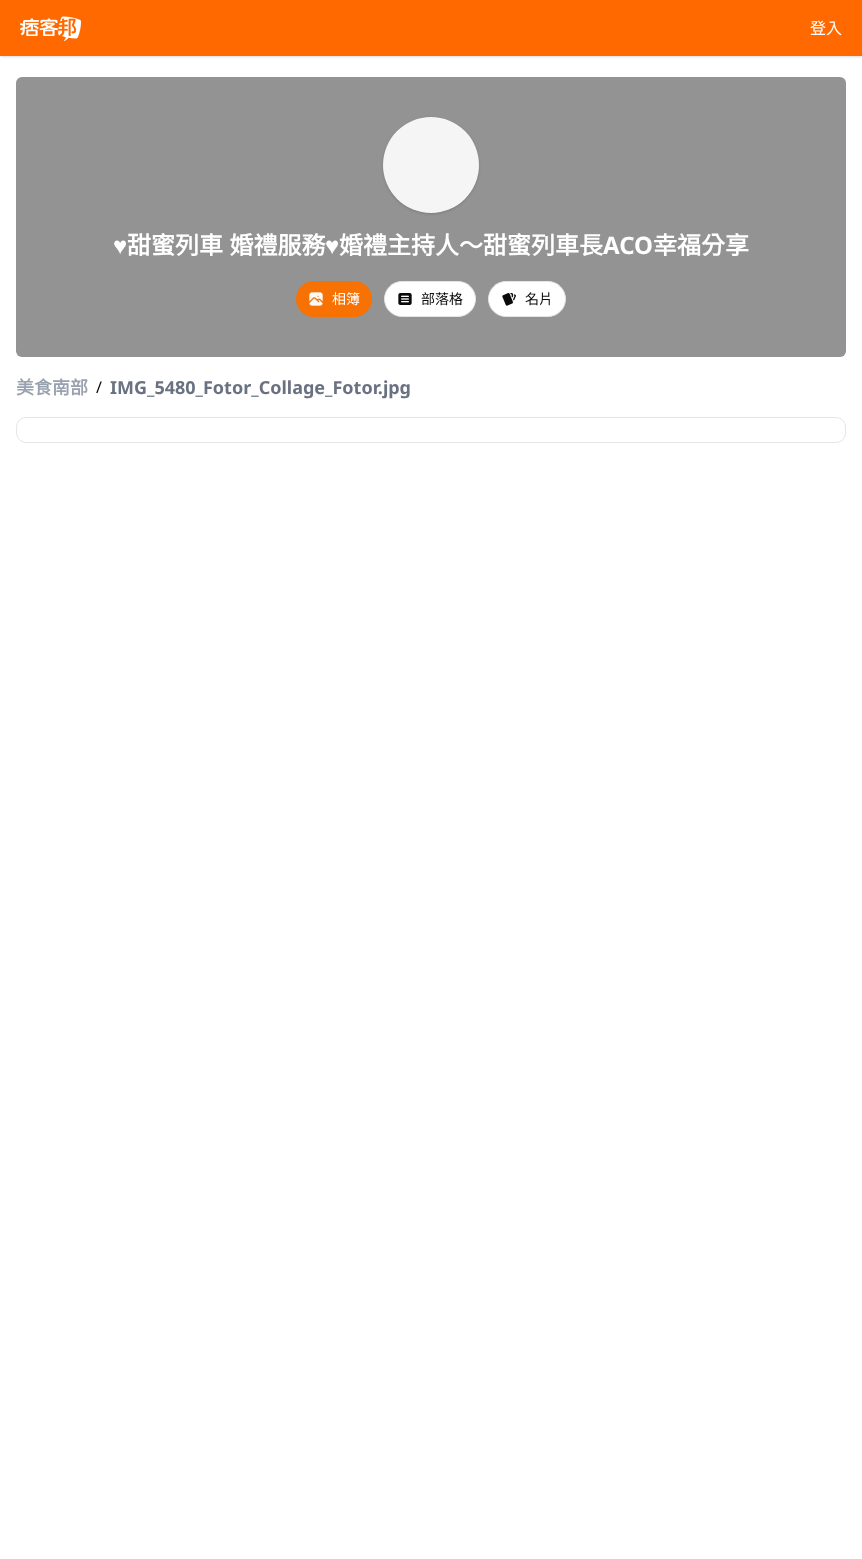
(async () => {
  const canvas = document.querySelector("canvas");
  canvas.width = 862;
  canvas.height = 1559;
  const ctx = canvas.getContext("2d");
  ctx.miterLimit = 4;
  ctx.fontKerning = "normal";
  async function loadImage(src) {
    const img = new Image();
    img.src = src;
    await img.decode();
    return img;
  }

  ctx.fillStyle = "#ffffff";
  ctx.fillRect(0, 0, 862, 1559);
  ctx.fillStyle = "rgba(0, 0, 0, 0.1)";
  ctx.filter = "blur(1px)";
  ctx.beginPath();
  ctx.rect(1, 2, 860, 54);
  ctx.fill();
  ctx.filter = "none";
  ctx.filter = "blur(1.5px)";
  ctx.beginPath();
  ctx.rect(0, 1, 862, 56);
  ctx.fill();
  ctx.filter = "none";
  ctx.fillStyle = "#ff6900";
  ctx.fillRect(0, 0, 862, 56);
  ctx.drawImage(await loadImage("img/1.png"), 20, 16, 61, 25);
  ctx.fillStyle = "#939393";
  ctx.beginPath();
  ctx.roundRect(16, 77, 830, 280, 6);
  ctx.fill();
  ctx.fillStyle = "rgba(0, 0, 0, 0.1)";
  ctx.filter = "blur(1px)";
  ctx.beginPath();
  ctx.roundRect(384, 119, 94, 94, 47);
  ctx.fill();
  ctx.filter = "none";
  ctx.filter = "blur(1.5px)";
  ctx.beginPath();
  ctx.roundRect(383, 118, 96, 96, 48);
  ctx.fill();
  ctx.filter = "none";
  ctx.fillStyle = "#f5f5f5";
  ctx.beginPath();
  ctx.arc(431, 165, 48, 0, Math.PI * 2);
  ctx.fill();
  ctx.fillStyle = "#f87103";
  ctx.beginPath();
  ctx.roundRect(296, 281, 76, 36, 18);
  ctx.fill();
  ctx.drawImage(await loadImage("img/2.png"), 309, 292, 14, 14);
  ctx.fillStyle = "#ffffff";
  ctx.beginPath();
  ctx.roundRect(384.5, 281.5, 91, 35, 17.5);
  ctx.fill();
  ctx.strokeStyle = "#e5e5e5";
  ctx.stroke();
  ctx.drawImage(await loadImage("img/3.png"), 398, 293, 14, 12);
  ctx.beginPath();
  ctx.roundRect(488.5, 281.5, 77, 35, 17.5);
  ctx.fill();
  ctx.stroke();
  ctx.drawImage(await loadImage("img/4.png"), 502, 293, 14, 13);
  ctx.beginPath();
  ctx.roundRect(16.5, 417.5, 829, 25, 9.5);
  ctx.stroke();
  ctx.font = "16px Noto Sans CJK TC";
  ctx.fillText("登入", 810, 34);
  ctx.font = "bold 24px Liberation Sans";
  ctx.fillText("♥", 113, 254);
  ctx.wordSpacing = "1px";
  ctx.font = "bold 24px Noto Sans CJK TC";
  ctx.fillText("甜蜜列車 婚禮服務", 127, 254);
  ctx.wordSpacing = "0px";
  ctx.font = "bold 24px Liberation Sans";
  ctx.fillText("♥", 325, 254);
  ctx.font = "bold 24px Noto Sans CJK TC";
  ctx.fillText("婚禮主持人～甜蜜列車長", 339, 254);
  ctx.font = "bold 24px Noto Sans";
  ctx.fillText("ACO", 603, 254);
  ctx.font = "bold 24px Noto Sans CJK TC";
  ctx.fillText("幸福分享", 653, 254);
  ctx.font = "14px Noto Sans CJK TC";
  ctx.fillText("相簿", 332, 304);
  ctx.fillStyle = "#0a0a0a";
  ctx.fillText("部落格", 421, 304);
  ctx.fillText("名片", 525, 304);
  ctx.font = "bold 18px Noto Sans CJK TC";
  ctx.fillStyle = "#99a1af";
  ctx.fillText("美食南部", 16, 394);
  ctx.font = "16px Noto Sans";
  ctx.fillStyle = "#0a0a0a";
  ctx.fillText("/", 96, 393);
  ctx.font = "bold 18px Noto Sans";
  ctx.fillStyle = "#6a7282";
  ctx.fillText("IMG_5480_Fotor_Collage_Fotor.jpg", 110, 394);
})();
